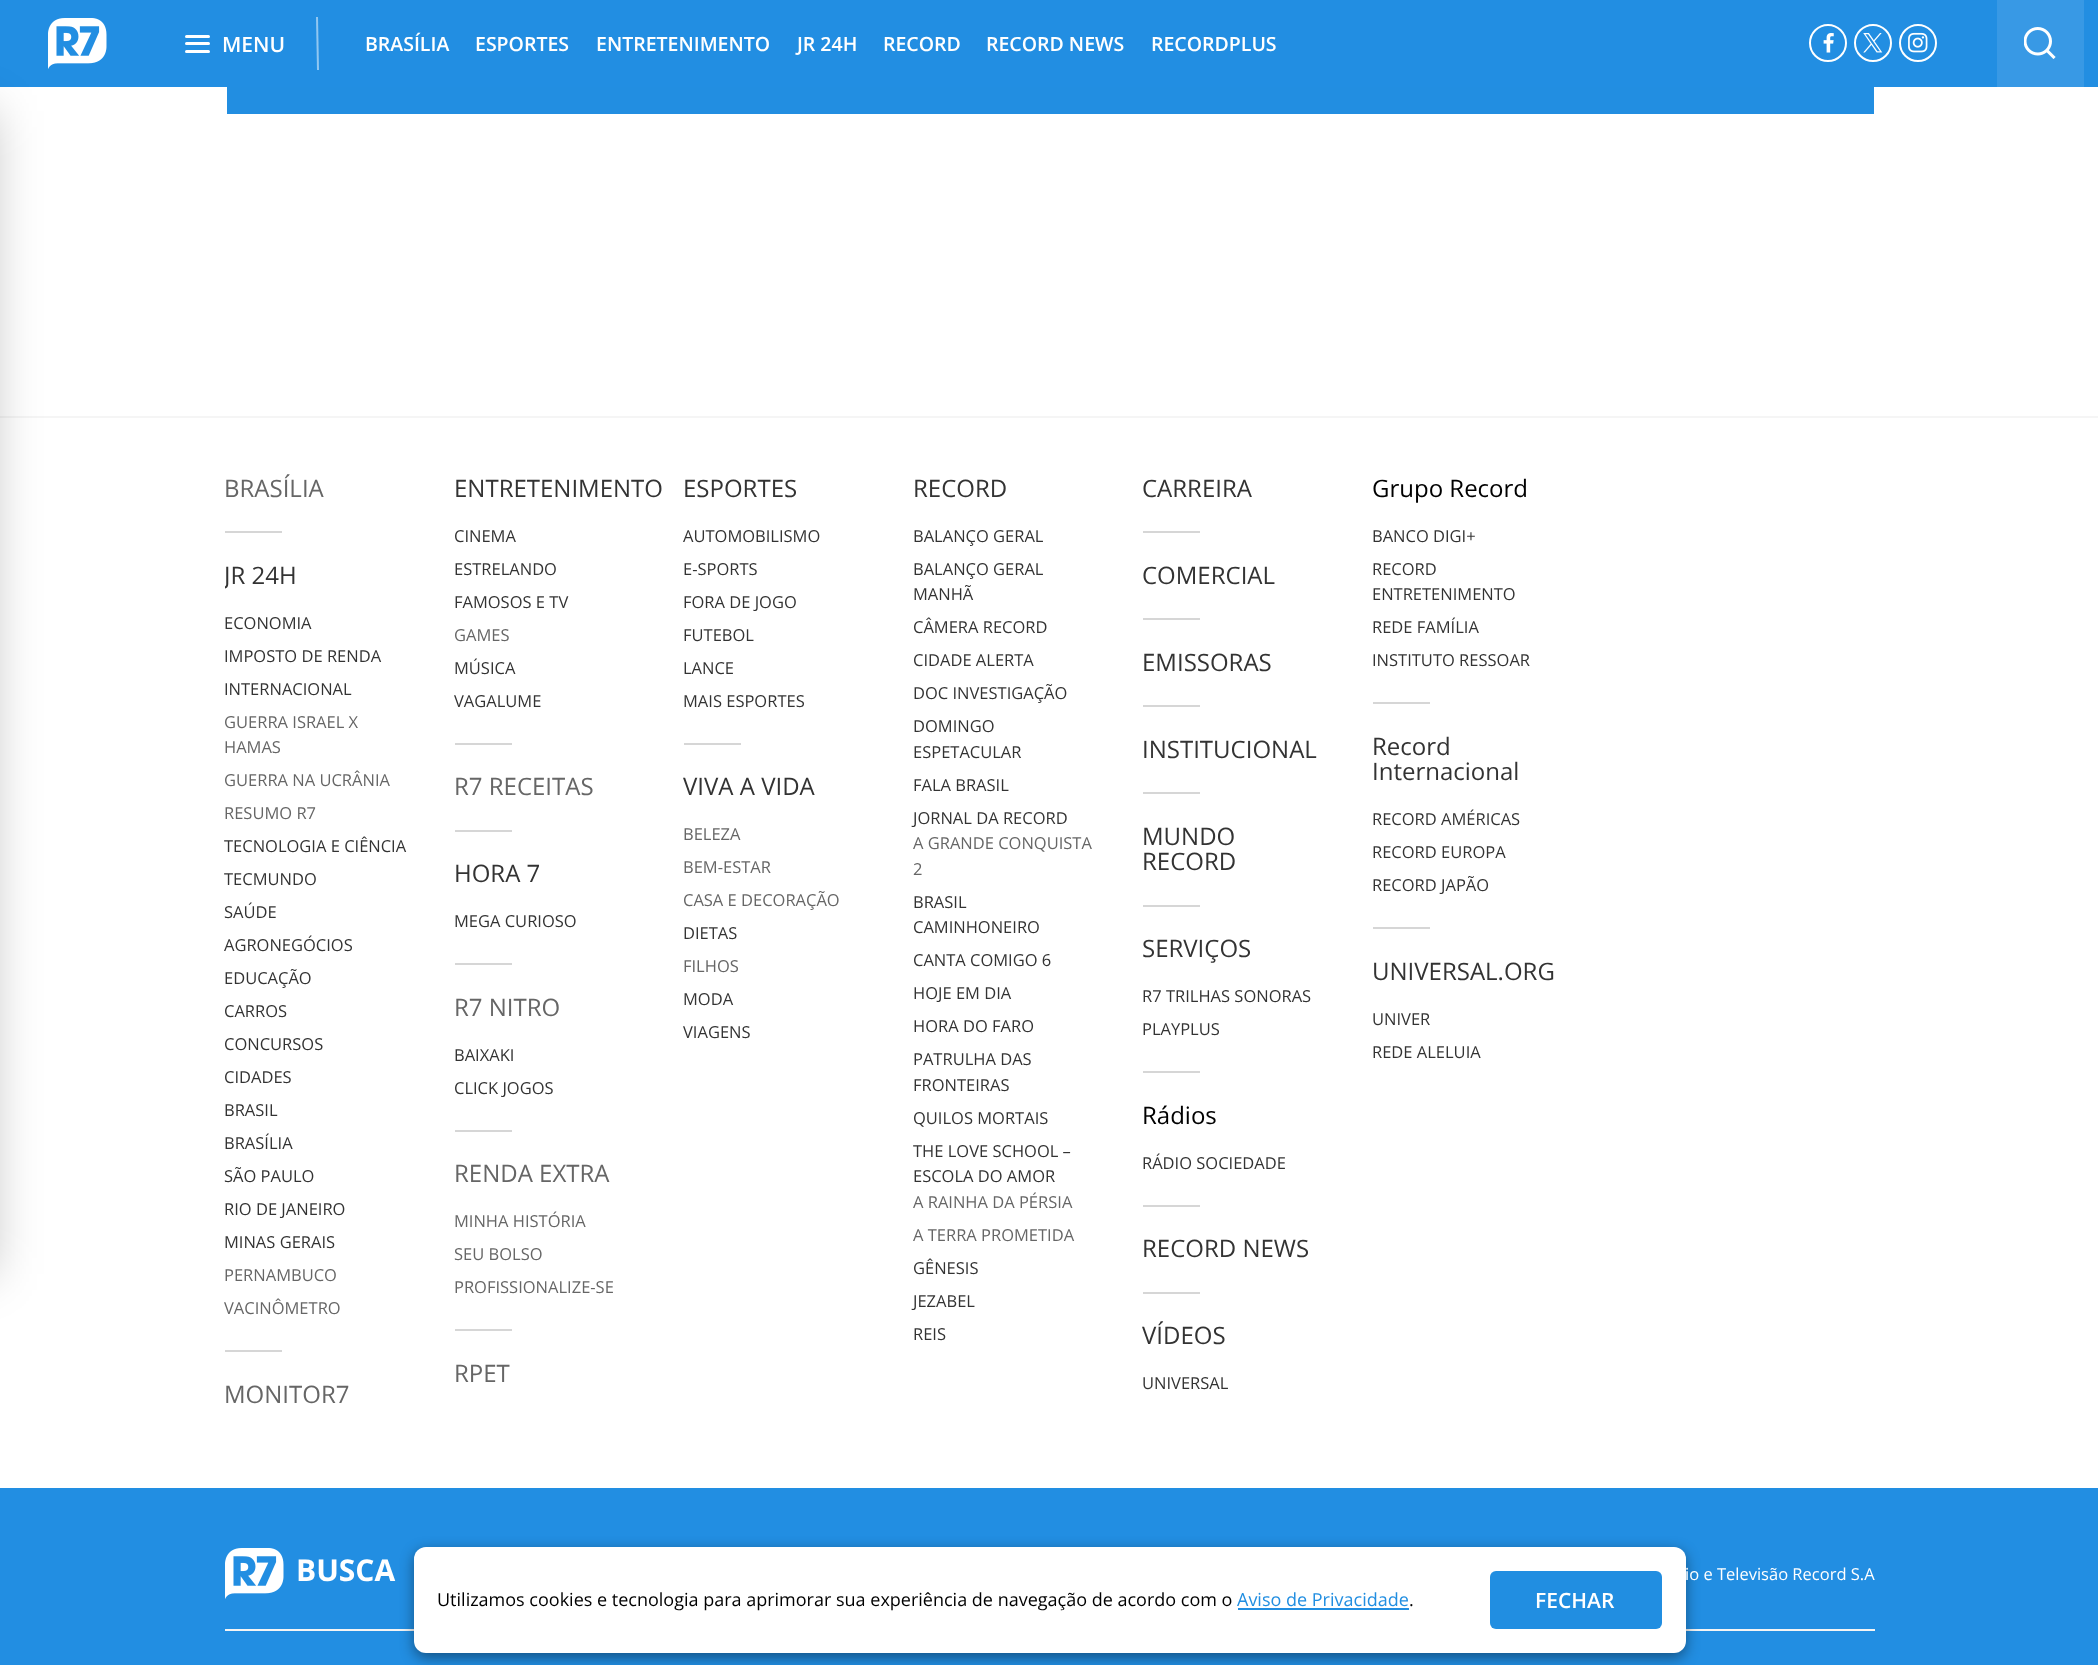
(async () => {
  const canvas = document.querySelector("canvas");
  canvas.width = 2098;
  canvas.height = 1665;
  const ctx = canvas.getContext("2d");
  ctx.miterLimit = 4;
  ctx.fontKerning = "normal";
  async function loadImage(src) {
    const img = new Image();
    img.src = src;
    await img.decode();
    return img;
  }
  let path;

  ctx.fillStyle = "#ffffff";
  ctx.fillRect(0, 0, 2098, 1665);
  ctx.fillStyle = "#228ee2";
  ctx.fillRect(0, 0, 2098, 87);
  ctx.drawImage(await loadImage("img/1.png"), 48, 18, 59, 51);
  ctx.fillStyle = "#f5f5f5";
  ctx.fillRect(0, 416, 2098, 2);
  ctx.fillStyle = "rgba(0, 0, 0, 0.24)";
  ctx.filter = "blur(24px)";
  ctx.beginPath();
  ctx.rect(-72, 111, 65, 1163);
  ctx.fill();
  ctx.filter = "none";
  ctx.fillStyle = "#ffffff";
  ctx.beginPath();
  ctx.roundRect(185, 35, 25, 3, 1.5);
  ctx.fill();
  ctx.beginPath();
  ctx.roundRect(185, 42, 25, 3, 1.5);
  ctx.fill();
  ctx.beginPath();
  ctx.roundRect(185, 50, 25, 3, 1.5);
  ctx.fill();
  ctx.fillStyle = "#91c7f1";
  path = new Path2D("M316 17H318L319 70H317Z");
  ctx.fill(path);
  ctx.beginPath();
  ctx.arc(1828, 43, 18, 0, Math.PI * 2);
  ctx.strokeStyle = "#ffffff";
  ctx.lineWidth = 2;
  ctx.stroke();
  ctx.drawImage(await loadImage("img/2.png"), 1823, 33, 11, 20);
  ctx.beginPath();
  ctx.arc(1873, 43, 18, 0, Math.PI * 2);
  ctx.stroke();
  ctx.drawImage(await loadImage("img/3.png"), 1863, 33, 20, 20);
  ctx.beginPath();
  ctx.arc(1918, 43, 18, 0, Math.PI * 2);
  ctx.stroke();
  ctx.drawImage(await loadImage("img/4.png"), 1908, 32, 20, 21);
  ctx.fillStyle = "#3899e5";
  ctx.fillRect(1997, 0, 87, 87);
  ctx.drawImage(await loadImage("img/5.png"), 2024, 27, 32, 32);
  for (const [x, y, w, h, color] of [
    [227, 87, 1647, 27, "#228ee1"],
    [225, 531, 57, 2, "#d6d6d6"],
    [225, 1350, 57, 2, "#d6d6d6"],
    [455, 743, 57, 2, "#d6d6d6"],
    [455, 830, 57, 2, "#d6d6d6"],
    [455, 963, 57, 2, "#d6d6d6"],
    [455, 1130, 57, 2, "#d6d6d6"],
    [455, 1329, 57, 2, "#d6d6d6"],
    [684, 743, 57, 2, "#d6d6d6"],
    [1143, 531, 57, 2, "#d6d6d6"],
    [1143, 618, 57, 2, "#d6d6d6"],
    [1143, 705, 57, 2, "#d6d6d6"],
    [1143, 792, 57, 2, "#d6d6d6"],
    [1143, 905, 57, 2, "#d6d6d6"],
    [1143, 1071, 57, 2, "#d6d6d6"],
    [1143, 1205, 57, 2, "#d6d6d6"],
    [1143, 1292, 57, 2, "#d6d6d6"],
    [1373, 702, 57, 2, "#d6d6d6"],
    [1373, 927, 57, 2, "#d6d6d6"],
    [0, 1488, 2098, 177, "#228ee2"],
    [225, 1629, 1650, 2, "#f4f4f4"],
  ]) {
    ctx.fillStyle = color;
    ctx.fillRect(x, y, w, h);
  }
  ctx.drawImage(await loadImage("img/1.png"), 225, 1548, 59, 51);
  ctx.fillStyle = "rgba(0, 0, 0, 0.41)";
  ctx.filter = "blur(7px)";
  ctx.beginPath();
  ctx.roundRect(414, 1551, 1272, 107, 12);
  ctx.fill();
  ctx.filter = "none";
  ctx.fillStyle = "#ffffff";
  ctx.beginPath();
  ctx.roundRect(414, 1547, 1272, 106, 12);
  ctx.fill();
  ctx.fillStyle = "#218ee1";
  ctx.fillRect(1238, 1608, 171, 2);
  ctx.beginPath();
  ctx.roundRect(1490, 1571, 172, 58, 6);
  ctx.fill();
  ctx.font = "600 21px Open Sans";
  ctx.fillStyle = "#ffffff";
  ctx.fillText("MENU", 222, 52);
  ctx.font = "600 19.5px Open Sans";
  for (const [text, x, y] of [
    ["BRASÍLIA", 365, 51],
    ["ESPORTES", 475, 51],
    ["ENTRETENIMENTO", 596, 51],
    ["JR 24H", 797, 51],
    ["RECORD", 883, 51],
    ["RECORD NEWS", 986, 51],
    ["RECORDPLUS", 1151, 51],
  ]) {
    ctx.fillText(text, x, y);
  }
  ctx.font = "24px Open Sans";
  ctx.fillStyle = "#666666";
  ctx.fillText("BRASÍLIA", 224, 497);
  ctx.save();
  ctx.beginPath();
  ctx.rect(225, 416, 1650, 1072);
  ctx.clip();
  ctx.fillStyle = "#333333";
  ctx.fillText("JR 24H", 224, 584);
  ctx.restore();
  ctx.font = "16.5px Open Sans";
  ctx.fillStyle = "#333333";
  for (const [text, x, y] of [
    ["ECONOMIA", 224, 629],
    ["IMPOSTO DE RENDA", 224, 662],
    ["INTERNACIONAL", 224, 695],
  ]) {
    ctx.fillText(text, x, y);
  }
  ctx.fillStyle = "#666666";
  for (const [text, x, y] of [
    ["GUERRA ISRAEL X", 224, 728],
    ["HAMAS", 224, 753],
    ["GUERRA NA UCRÂNIA", 224, 786],
    ["RESUMO R7", 224, 819],
  ]) {
    ctx.fillText(text, x, y);
  }
  ctx.fillStyle = "#333333";
  for (const [text, x, y] of [
    ["TECNOLOGIA E CIÊNCIA", 224, 852],
    ["TECMUNDO", 224, 885],
    ["SAÚDE", 224, 918],
    ["AGRONEGÓCIOS", 224, 951],
    ["EDUCAÇÃO", 224, 984],
    ["CARROS", 224, 1017],
    ["CONCURSOS", 224, 1050],
    ["CIDADES", 224, 1083],
    ["BRASIL", 224, 1116],
    ["BRASÍLIA", 224, 1149],
    ["SÃO PAULO", 224, 1182],
    ["RIO DE JANEIRO", 224, 1215],
    ["MINAS GERAIS", 224, 1248],
  ]) {
    ctx.fillText(text, x, y);
  }
  ctx.fillStyle = "#666666";
  ctx.fillText("PERNAMBUCO", 224, 1281);
  ctx.fillText("VACINÔMETRO", 224, 1314);
  ctx.font = "24px Open Sans";
  ctx.fillText("MONITOR7", 224, 1403);
  ctx.fillStyle = "#333333";
  ctx.fillText("ENTRETENIMENTO", 454, 497);
  ctx.font = "16.5px Open Sans";
  for (const [text, x, y] of [
    ["CINEMA", 454, 542],
    ["ESTRELANDO", 454, 575],
    ["FAMOSOS E TV", 454, 608],
  ]) {
    ctx.fillText(text, x, y);
  }
  ctx.fillStyle = "#666666";
  ctx.fillText("GAMES", 454, 641);
  ctx.fillStyle = "#333333";
  ctx.fillText("MÚSICA", 454, 674);
  ctx.fillText("VAGALUME", 454, 707);
  ctx.font = "24px Open Sans";
  ctx.fillStyle = "#666666";
  ctx.fillText("R7 RECEITAS", 454, 795);
  ctx.fillStyle = "#333333";
  ctx.fillText("HORA 7", 454, 882);
  ctx.font = "16.5px Open Sans";
  ctx.fillText("MEGA CURIOSO", 454, 927);
  ctx.font = "24px Open Sans";
  ctx.fillStyle = "#666666";
  ctx.fillText("R7 NITRO", 454, 1016);
  ctx.font = "16.5px Open Sans";
  ctx.fillStyle = "#333333";
  ctx.fillText("BAIXAKI", 454, 1061);
  ctx.fillText("CLICK JOGOS", 454, 1094);
  ctx.font = "24px Open Sans";
  ctx.fillStyle = "#666666";
  ctx.fillText("RENDA EXTRA", 454, 1182);
  ctx.font = "16.5px Open Sans";
  for (const [text, x, y] of [
    ["MINHA HISTÓRIA", 454, 1227],
    ["SEU BOLSO", 454, 1260],
    ["PROFISSIONALIZE-SE", 454, 1293],
  ]) {
    ctx.fillText(text, x, y);
  }
  ctx.font = "24px Open Sans";
  ctx.fillText("RPET", 454, 1382);
  ctx.fillStyle = "#333333";
  ctx.fillText("ESPORTES", 683, 497);
  ctx.font = "16.5px Open Sans";
  for (const [text, x, y] of [
    ["AUTOMOBILISMO", 683, 542],
    ["E-SPORTS", 683, 575],
    ["FORA DE JOGO", 683, 608],
    ["FUTEBOL", 683, 641],
    ["LANCE", 683, 674],
    ["MAIS ESPORTES", 683, 707],
  ]) {
    ctx.fillText(text, x, y);
  }
  ctx.font = "24px Open Sans";
  ctx.fillText("VIVA A VIDA", 683, 795);
  ctx.font = "16.5px Open Sans";
  ctx.fillStyle = "#666666";
  for (const [text, x, y] of [
    ["BELEZA", 683, 840],
    ["BEM-ESTAR", 683, 873],
    ["CASA E DECORAÇÃO", 683, 906],
  ]) {
    ctx.fillText(text, x, y);
  }
  ctx.fillStyle = "#333333";
  ctx.fillText("DIETAS", 683, 939);
  ctx.fillStyle = "#666666";
  ctx.fillText("FILHOS", 683, 972);
  ctx.fillStyle = "#333333";
  ctx.fillText("MODA", 683, 1005);
  ctx.fillText("VIAGENS", 683, 1038);
  ctx.font = "24px Open Sans";
  ctx.fillText("RECORD", 913, 497);
  ctx.font = "16.5px Open Sans";
  for (const [text, x, y] of [
    ["BALANÇO GERAL", 913, 542],
    ["BALANÇO GERAL", 913, 575],
    ["MANHÃ", 913, 600],
    ["CÂMERA RECORD", 913, 633],
    ["CIDADE ALERTA", 913, 666],
    ["DOC INVESTIGAÇÃO", 913, 699],
    ["DOMINGO", 913, 732],
    ["ESPETACULAR", 913, 758],
    ["FALA BRASIL", 913, 791],
    ["JORNAL DA RECORD", 913, 824],
  ]) {
    ctx.fillText(text, x, y);
  }
  ctx.fillStyle = "#666666";
  ctx.fillText("A GRANDE CONQUISTA", 913, 849);
  ctx.fillText("2", 913, 875);
  ctx.fillStyle = "#333333";
  for (const [text, x, y] of [
    ["BRASIL", 913, 908],
    ["CAMINHONEIRO", 913, 933],
    ["CANTA COMIGO 6", 913, 966],
    ["HOJE EM DIA", 913, 999],
    ["HORA DO FARO", 913, 1032],
    ["PATRULHA DAS", 913, 1065],
    ["FRONTEIRAS", 913, 1091],
    ["QUILOS MORTAIS", 913, 1124],
    ["THE LOVE SCHOOL –", 913, 1157],
    ["ESCOLA DO AMOR", 913, 1182],
  ]) {
    ctx.fillText(text, x, y);
  }
  ctx.fillStyle = "#666666";
  ctx.fillText("A RAINHA DA PÉRSIA", 913, 1208);
  ctx.fillText("A TERRA PROMETIDA", 913, 1241);
  ctx.fillStyle = "#333333";
  for (const [text, x, y] of [
    ["GÊNESIS", 913, 1274],
    ["JEZABEL", 913, 1307],
    ["REIS", 913, 1340],
  ]) {
    ctx.fillText(text, x, y);
  }
  ctx.font = "24px Open Sans";
  for (const [text, x, y] of [
    ["CARREIRA", 1142, 497],
    ["COMERCIAL", 1142, 584],
    ["EMISSORAS", 1142, 671],
    ["INSTITUCIONAL", 1142, 758],
    ["MUNDO", 1142, 845],
    ["RECORD", 1142, 870],
    ["SERVIÇOS", 1142, 957],
  ]) {
    ctx.fillText(text, x, y);
  }
  ctx.font = "16.5px Open Sans";
  ctx.fillText("R7 TRILHAS SONORAS", 1142, 1002);
  ctx.fillText("PLAYPLUS", 1142, 1035);
  ctx.font = "24px Open Sans";
  ctx.fillStyle = "#000000";
  ctx.fillText("Rádios", 1142, 1124);
  ctx.font = "16.5px Open Sans";
  ctx.fillStyle = "#333333";
  ctx.fillText("RÁDIO SOCIEDADE", 1142, 1169);
  ctx.font = "24px Open Sans";
  ctx.fillText("RECORD NEWS", 1142, 1257);
  ctx.fillText("VÍDEOS", 1142, 1344);
  ctx.font = "16.5px Open Sans";
  ctx.fillText("UNIVERSAL", 1142, 1389);
  ctx.font = "24px Open Sans";
  ctx.fillStyle = "#000000";
  ctx.fillText("Grupo Record", 1372, 497);
  ctx.font = "16.5px Open Sans";
  ctx.fillStyle = "#333333";
  for (const [text, x, y] of [
    ["BANCO DIGI+", 1372, 542],
    ["RECORD", 1372, 575],
    ["ENTRETENIMENTO", 1372, 600],
    ["REDE FAMÍLIA", 1372, 633],
    ["INSTITUTO RESSOAR", 1372, 666],
  ]) {
    ctx.fillText(text, x, y);
  }
  ctx.font = "24px Open Sans";
  ctx.fillText("Record", 1372, 755);
  ctx.fillText("Internacional", 1372, 780);
  ctx.font = "16.5px Open Sans";
  for (const [text, x, y] of [
    ["RECORD AMÉRICAS", 1372, 825],
    ["RECORD EUROPA", 1372, 858],
    ["RECORD JAPÃO", 1372, 891],
  ]) {
    ctx.fillText(text, x, y);
  }
  ctx.font = "24px Open Sans";
  ctx.fillText("UNIVERSAL.ORG", 1372, 980);
  ctx.font = "16.5px Open Sans";
  ctx.fillText("UNIVER", 1372, 1025);
  ctx.fillText("REDE ALELUIA", 1372, 1058);
  ctx.font = "bold 30px Open Sans";
  ctx.fillStyle = "#ffffff";
  ctx.fillText("BUSCA", 296, 1581);
  ctx.font = "16.5px Open Sans";
  ctx.fillText("io e Televisão Record S.A", 1685, 1580);
  ctx.font = "18px Open Sans";
  ctx.fillStyle = "#000000";
  ctx.fillText("Utilizamos cookies e tecnologia para aprimorar sua experiência de navegação de acordo com o", 437, 1606);
  ctx.fillStyle = "#218ee1";
  ctx.fillText("Aviso de Privacidade", 1237, 1606);
  ctx.fillStyle = "#000000";
  ctx.fillText(".", 1409, 1606);
  ctx.font = "600 21px Open Sans";
  ctx.fillStyle = "#ffffff";
  ctx.fillText("FECHAR", 1535, 1608);
})();
